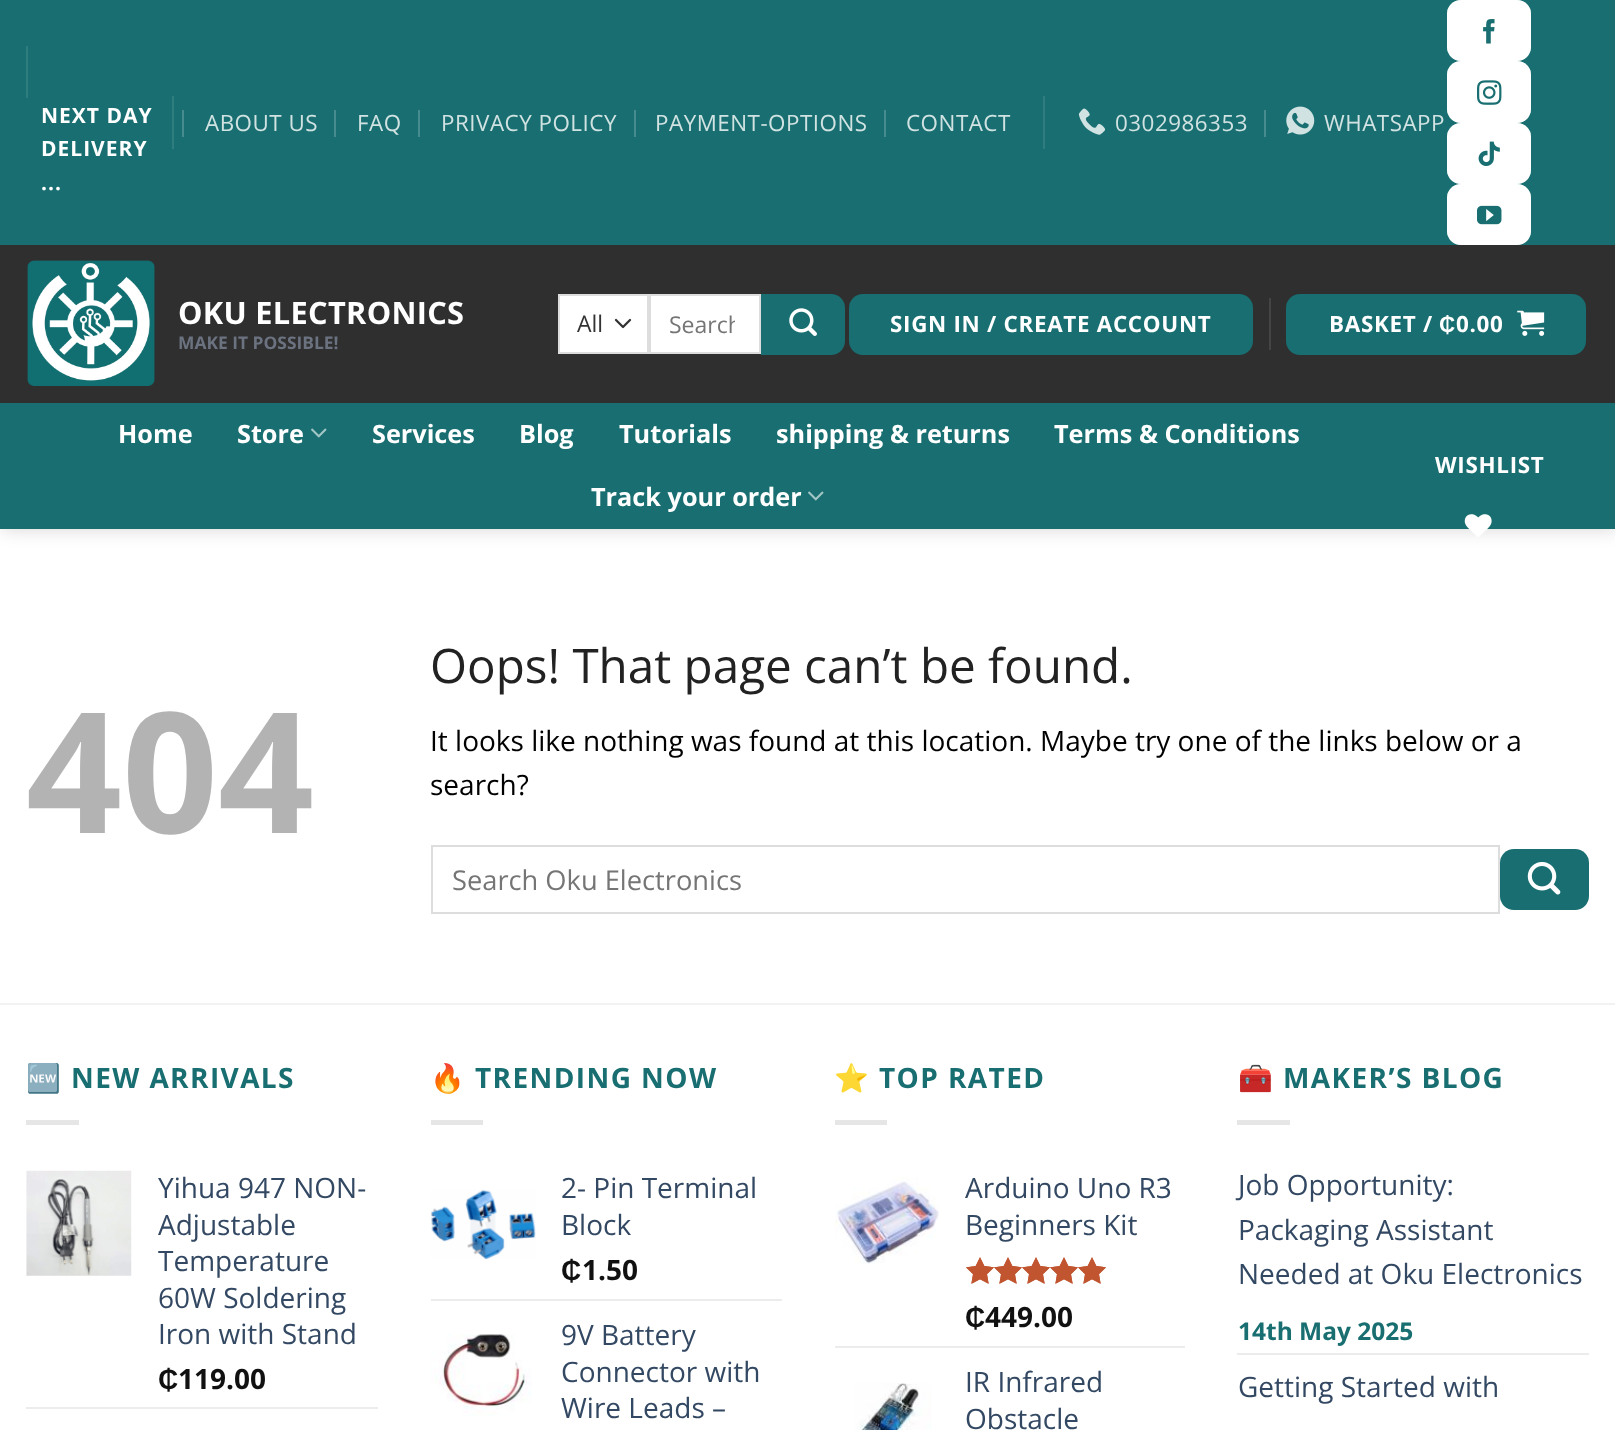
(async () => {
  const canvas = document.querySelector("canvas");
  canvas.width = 1615;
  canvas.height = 1430;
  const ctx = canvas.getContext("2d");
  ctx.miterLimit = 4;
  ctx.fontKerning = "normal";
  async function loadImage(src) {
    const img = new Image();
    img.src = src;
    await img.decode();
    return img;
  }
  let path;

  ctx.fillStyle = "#ffffff";
  ctx.fillRect(0, 0, 1615, 1430);
  ctx.fillStyle = "rgba(0, 0, 0, 0.15)";
  ctx.filter = "blur(9px)";
  ctx.beginPath();
  ctx.rect(2, 2, 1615, 528);
  ctx.fill();
  ctx.filter = "none";
  for (const [x, y, w, h, color] of [
    [0, 0, 1615, 245, "#186e70"],
    [26, 46, 2, 52, "#2f7d7e"],
    [172, 96, 2, 53, "#2f7d7e"],
    [182, 110, 2, 27, "#468b8d"],
    [334, 110, 2, 27, "#468b8d"],
    [418, 110, 2, 27, "#468b8d"],
    [634, 110, 2, 27, "#468b8d"],
    [884, 110, 2, 27, "#468b8d"],
    [1043, 96, 2, 53, "#2f7d7e"],
  ]) {
    ctx.fillStyle = color;
    ctx.fillRect(x, y, w, h);
  }
  ctx.drawImage(await loadImage("img/1.png"), 1078, 108, 28, 27);
  ctx.fillStyle = "#468b8d";
  ctx.fillRect(1264, 110, 2, 27);
  ctx.drawImage(await loadImage("img/2.png"), 1286, 106, 29, 29);
  ctx.fillStyle = "#ffffff";
  ctx.beginPath();
  ctx.roundRect(1447, 0, 84, 61, 14);
  ctx.fill();
  ctx.beginPath();
  ctx.roundRect(1448, 1, 82, 59, 13);
  ctx.strokeStyle = "rgba(255, 255, 255, 0.5)";
  ctx.lineWidth = 2;
  ctx.stroke();
  ctx.drawImage(await loadImage("img/3.png"), 1483, 19, 12, 25);
  ctx.beginPath();
  ctx.roundRect(1447, 61, 84, 62, 14);
  ctx.fill();
  ctx.beginPath();
  ctx.roundRect(1448, 62, 82, 60, 13);
  ctx.stroke();
  ctx.drawImage(await loadImage("img/4.png"), 1477, 80, 25, 25);
  ctx.beginPath();
  ctx.roundRect(1447, 123, 84, 61, 14);
  ctx.fill();
  ctx.beginPath();
  ctx.roundRect(1448, 124, 82, 59, 13);
  ctx.stroke();
  ctx.drawImage(await loadImage("img/5.png"), 1478, 141, 22, 25);
  ctx.beginPath();
  ctx.roundRect(1447, 184, 84, 61, 14);
  ctx.fill();
  ctx.beginPath();
  ctx.roundRect(1448, 185, 82, 59, 13);
  ctx.stroke();
  ctx.drawImage(await loadImage("img/6.png"), 1477, 205, 25, 20);
  ctx.fillStyle = "#2f2f2f";
  ctx.fillRect(0, 245, 1615, 158);
  ctx.drawImage(await loadImage("img/7.png"), 27, 260, 128, 126);
  ctx.fillStyle = "#ffffff";
  ctx.fillRect(560, 296, 87, 56);
  path = new Path2D("M616 320L623 327L630 320");
  ctx.strokeStyle = "#333333";
  ctx.lineWidth = 2.3;
  ctx.lineCap = "round";
  ctx.lineJoin = "round";
  ctx.stroke(path);
  ctx.strokeStyle = "#dddddd";
  ctx.lineWidth = 2;
  ctx.lineJoin = "miter";
  ctx.strokeRect(559, 295, 89, 58);
  ctx.beginPath();
  ctx.rect(650, 295, 110, 58);
  ctx.fill();
  ctx.stroke();
  ctx.fillStyle = "#186e70";
  ctx.beginPath();
  ctx.roundRect(761, 294, 84, 61, [0, 14, 14, 0]);
  ctx.fill();
  ctx.drawImage(await loadImage("img/8.png"), 789, 308, 28, 28);
  ctx.beginPath();
  ctx.roundRect(849, 294, 404, 61, 14);
  ctx.fill();
  ctx.fillStyle = "#444444";
  ctx.fillRect(1269, 298, 2, 52);
  ctx.fillStyle = "#186e70";
  ctx.beginPath();
  ctx.roundRect(1286, 294, 300, 61, 14);
  ctx.fill();
  ctx.drawImage(await loadImage("img/9.png"), 1517, 310, 28, 26);
  ctx.fillRect(0, 403, 1615, 126);
  ctx.drawImage(await loadImage("img/10.png"), 311, 428, 16, 10);
  ctx.drawImage(await loadImage("img/10.png"), 808, 491, 16, 10);
  ctx.drawImage(await loadImage("img/11.png"), 1464, 514, 28, 23);
  ctx.strokeRect(432, 846, 1067, 67);
  ctx.beginPath();
  ctx.roundRect(1500, 849, 89, 61, 14);
  ctx.fill();
  ctx.drawImage(await loadImage("img/12.png"), 1527, 862, 34, 33);
  ctx.fillStyle = "#f2f2f2";
  ctx.fillRect(0, 1003, 1615, 2);
  ctx.fillStyle = "#e6e6e6";
  ctx.fillRect(26, 1120, 53, 5);
  ctx.drawImage(await loadImage("img/13.png"), 26, 1170, 106, 106);
  ctx.fillStyle = "#ececec";
  ctx.fillRect(26, 1407, 352, 2);
  ctx.fillStyle = "#e6e6e6";
  ctx.fillRect(431, 1120, 52, 5);
  ctx.drawImage(await loadImage("img/14.png"), 430, 1189, 106, 71);
  ctx.fillStyle = "#ececec";
  ctx.fillRect(431, 1299, 351, 2);
  ctx.drawImage(await loadImage("img/15.png"), 431, 1334, 101, 82);
  ctx.fillStyle = "#e6e6e6";
  ctx.fillRect(835, 1120, 52, 5);
  ctx.drawImage(await loadImage("img/16.png"), 835, 1177, 104, 87);
  ctx.drawImage(await loadImage("img/17.png"), 966, 1257, 140, 27);
  ctx.drawImage(await loadImage("img/18.png"), 966, 1257, 140, 27);
  ctx.fillStyle = "#ececec";
  ctx.fillRect(835, 1346, 350, 2);
  ctx.drawImage(await loadImage("img/19.png"), 855, 1383, 77, 47);
  ctx.fillStyle = "#e6e6e6";
  ctx.fillRect(1237, 1120, 53, 5);
  ctx.fillStyle = "#ececec";
  ctx.fillRect(1237, 1353, 352, 2);
  ctx.letterSpacing = "1px";
  ctx.font = "bold 21px Open Sans";
  ctx.fillStyle = "#ffffff";
  for (const [text, x, y] of [
    ["NEXT DAY", 41, 123],
    ["DELIVERY", 41, 156],
    ["...", 41, 190],
  ]) {
    ctx.fillText(text, x, y);
  }
  ctx.letterSpacing = "0.5px";
  ctx.font = "22.4px Open Sans";
  ctx.fillStyle = "#d1e2e2";
  for (const [text, x, y] of [
    ["ABOUT US", 205, 131],
    ["FAQ", 357, 131],
    ["PRIVACY POLICY", 441, 131],
    ["PAYMENT-OPTIONS", 655, 131],
    ["CONTACT", 906, 131],
    ["0302986353", 1115, 131],
    ["WHATSAPP", 1324, 131],
  ]) {
    ctx.fillText(text, x, y);
  }
  ctx.letterSpacing = "0.3px";
  ctx.font = "bold 30.75px Open Sans";
  ctx.fillStyle = "#ffffff";
  ctx.fillText("OKU ELECTRONICS", 178, 324);
  ctx.letterSpacing = "0px";
  ctx.font = "bold 17.4px Open Sans";
  ctx.fillStyle = "#6b7280";
  ctx.fillText("MAKE IT POSSIBLE!", 178, 349);
  ctx.font = "23px Open Sans";
  ctx.fillStyle = "#333333";
  ctx.fillText("All", 577, 332);
  ctx.save();
  ctx.beginPath();
  ctx.rect(669, 308, 66, 32);
  ctx.clip();
  ctx.fillStyle = "#757575";
  ctx.fillText("Search", 669, 333);
  ctx.restore();
  ctx.letterSpacing = "0.7px";
  ctx.font = "bold 22.4px Open Sans";
  ctx.fillStyle = "#ffffff";
  ctx.fillText("SIGN IN / CREATE ACCOUNT", 890, 332);
  ctx.fillText("BASKET /", 1329, 332);
  ctx.font = "bold 22.4px Liberation Sans";
  ctx.fillText("₵", 1439, 332);
  ctx.font = "bold 22.4px Open Sans";
  ctx.fillText("0.00", 1456, 332);
  ctx.letterSpacing = "0px";
  ctx.font = "bold 25.25px Open Sans";
  for (const [text, x, y] of [
    ["Home", 118, 443],
    ["Store", 237, 443],
    ["Services", 372, 443],
    ["Blog", 519, 443],
    ["Tutorials", 619, 443],
    ["shipping & returns", 776, 443],
    ["Terms & Conditions", 1054, 443],
    ["Track your order", 591, 506],
  ]) {
    ctx.fillText(text, x, y);
  }
  ctx.letterSpacing = "0.7px";
  ctx.font = "bold 22.4px Open Sans";
  ctx.fillText("WISHLIST", 1435, 473);
  ctx.letterSpacing = "0px";
  ctx.font = "bold 168px Open Sans";
  ctx.fillStyle = "#b3b3b3";
  ctx.fillText("404", 26, 833);
  ctx.font = "47.6px Open Sans";
  ctx.fillStyle = "#222222";
  ctx.fillText("Oops! That page can’t be found.", 430, 683);
  ctx.font = "28px Open Sans";
  ctx.fillStyle = "#000000";
  ctx.fillText("It looks like nothing was found at this location. Maybe try one of the links below or a", 430, 751);
  ctx.fillText("search?", 430, 795);
  ctx.font = "27.25px Open Sans";
  ctx.fillStyle = "#757575";
  ctx.fillText("Search Oku Electronics", 452, 890);
  ctx.letterSpacing = "1.4px";
  ctx.font = "bold 28px Noto Color Emoji";
  ctx.fillStyle = "#186e70";
  ctx.fillText("🆕", 26, 1088);
  ctx.font = "bold 28px Open Sans";
  ctx.fillText("NEW ARRIVALS", 71, 1088);
  ctx.letterSpacing = "0px";
  ctx.font = "28px Open Sans";
  ctx.fillStyle = "#334862";
  for (const [text, x, y] of [
    ["Yihua 947 NON-", 158, 1198],
    ["Adjustable", 158, 1235],
    ["Temperature", 158, 1271],
    ["60W Soldering", 158, 1308],
    ["Iron with Stand", 158, 1344],
  ]) {
    ctx.fillText(text, x, y);
  }
  ctx.font = "bold 28px Liberation Sans";
  ctx.fillStyle = "#111111";
  ctx.fillText("₵", 158, 1389);
  ctx.font = "bold 28px Open Sans";
  ctx.fillText("119.00", 178, 1389);
  ctx.letterSpacing = "1.4px";
  ctx.font = "bold 28px Noto Color Emoji";
  ctx.fillStyle = "#186e70";
  ctx.fillText("🔥", 430, 1088);
  ctx.font = "bold 28px Open Sans";
  ctx.fillText("TRENDING NOW", 475, 1088);
  ctx.letterSpacing = "0px";
  ctx.font = "28px Open Sans";
  ctx.fillStyle = "#334862";
  ctx.fillText("2- Pin Terminal", 561, 1198);
  ctx.fillText("Block", 561, 1235);
  ctx.font = "bold 28px Liberation Sans";
  ctx.fillStyle = "#111111";
  ctx.fillText("₵", 561, 1280);
  ctx.font = "bold 28px Open Sans";
  ctx.fillText("1.50", 582, 1280);
  ctx.font = "28px Open Sans";
  ctx.fillStyle = "#334862";
  for (const [text, x, y] of [
    ["9V Battery", 561, 1345],
    ["Connector with", 561, 1382],
    ["Wire Leads –", 561, 1418],
  ]) {
    ctx.fillText(text, x, y);
  }
  ctx.letterSpacing = "1.4px";
  ctx.font = "bold 28px Noto Color Emoji";
  ctx.fillStyle = "#186e70";
  ctx.fillText("⭐", 834, 1088);
  ctx.font = "bold 28px Open Sans";
  ctx.fillText("TOP RATED", 879, 1088);
  ctx.letterSpacing = "0px";
  ctx.font = "28px Open Sans";
  ctx.fillStyle = "#334862";
  ctx.fillText("Arduino Uno R3", 965, 1198);
  ctx.fillText("Beginners Kit", 965, 1235);
  ctx.font = "bold 28px Liberation Sans";
  ctx.fillStyle = "#111111";
  ctx.fillText("₵", 965, 1327);
  ctx.font = "bold 28px Open Sans";
  ctx.fillText("449.00", 985, 1327);
  ctx.font = "28px Open Sans";
  ctx.fillStyle = "#334862";
  ctx.fillText("IR Infrared", 965, 1392);
  ctx.fillText("Obstacle", 965, 1429);
  ctx.letterSpacing = "1.4px";
  ctx.font = "bold 28px Noto Color Emoji";
  ctx.fillStyle = "#186e70";
  ctx.fillText("🧰", 1238, 1088);
  ctx.font = "bold 28px Open Sans";
  ctx.fillText("MAKER’S BLOG", 1283, 1088);
  ctx.letterSpacing = "0px";
  ctx.font = "28px Open Sans";
  ctx.fillStyle = "#334862";
  for (const [text, x, y] of [
    ["Job Opportunity:", 1238, 1195],
    ["Packaging Assistant", 1238, 1240],
    ["Needed at Oku Electronics", 1238, 1284],
  ]) {
    ctx.fillText(text, x, y);
  }
  ctx.font = "bold 24.5px Open Sans";
  ctx.fillStyle = "#186e70";
  ctx.fillText("14th May 2025", 1238, 1340);
  ctx.font = "28px Open Sans";
  ctx.fillStyle = "#334862";
  ctx.fillText("Getting Started with", 1238, 1397);
})();
